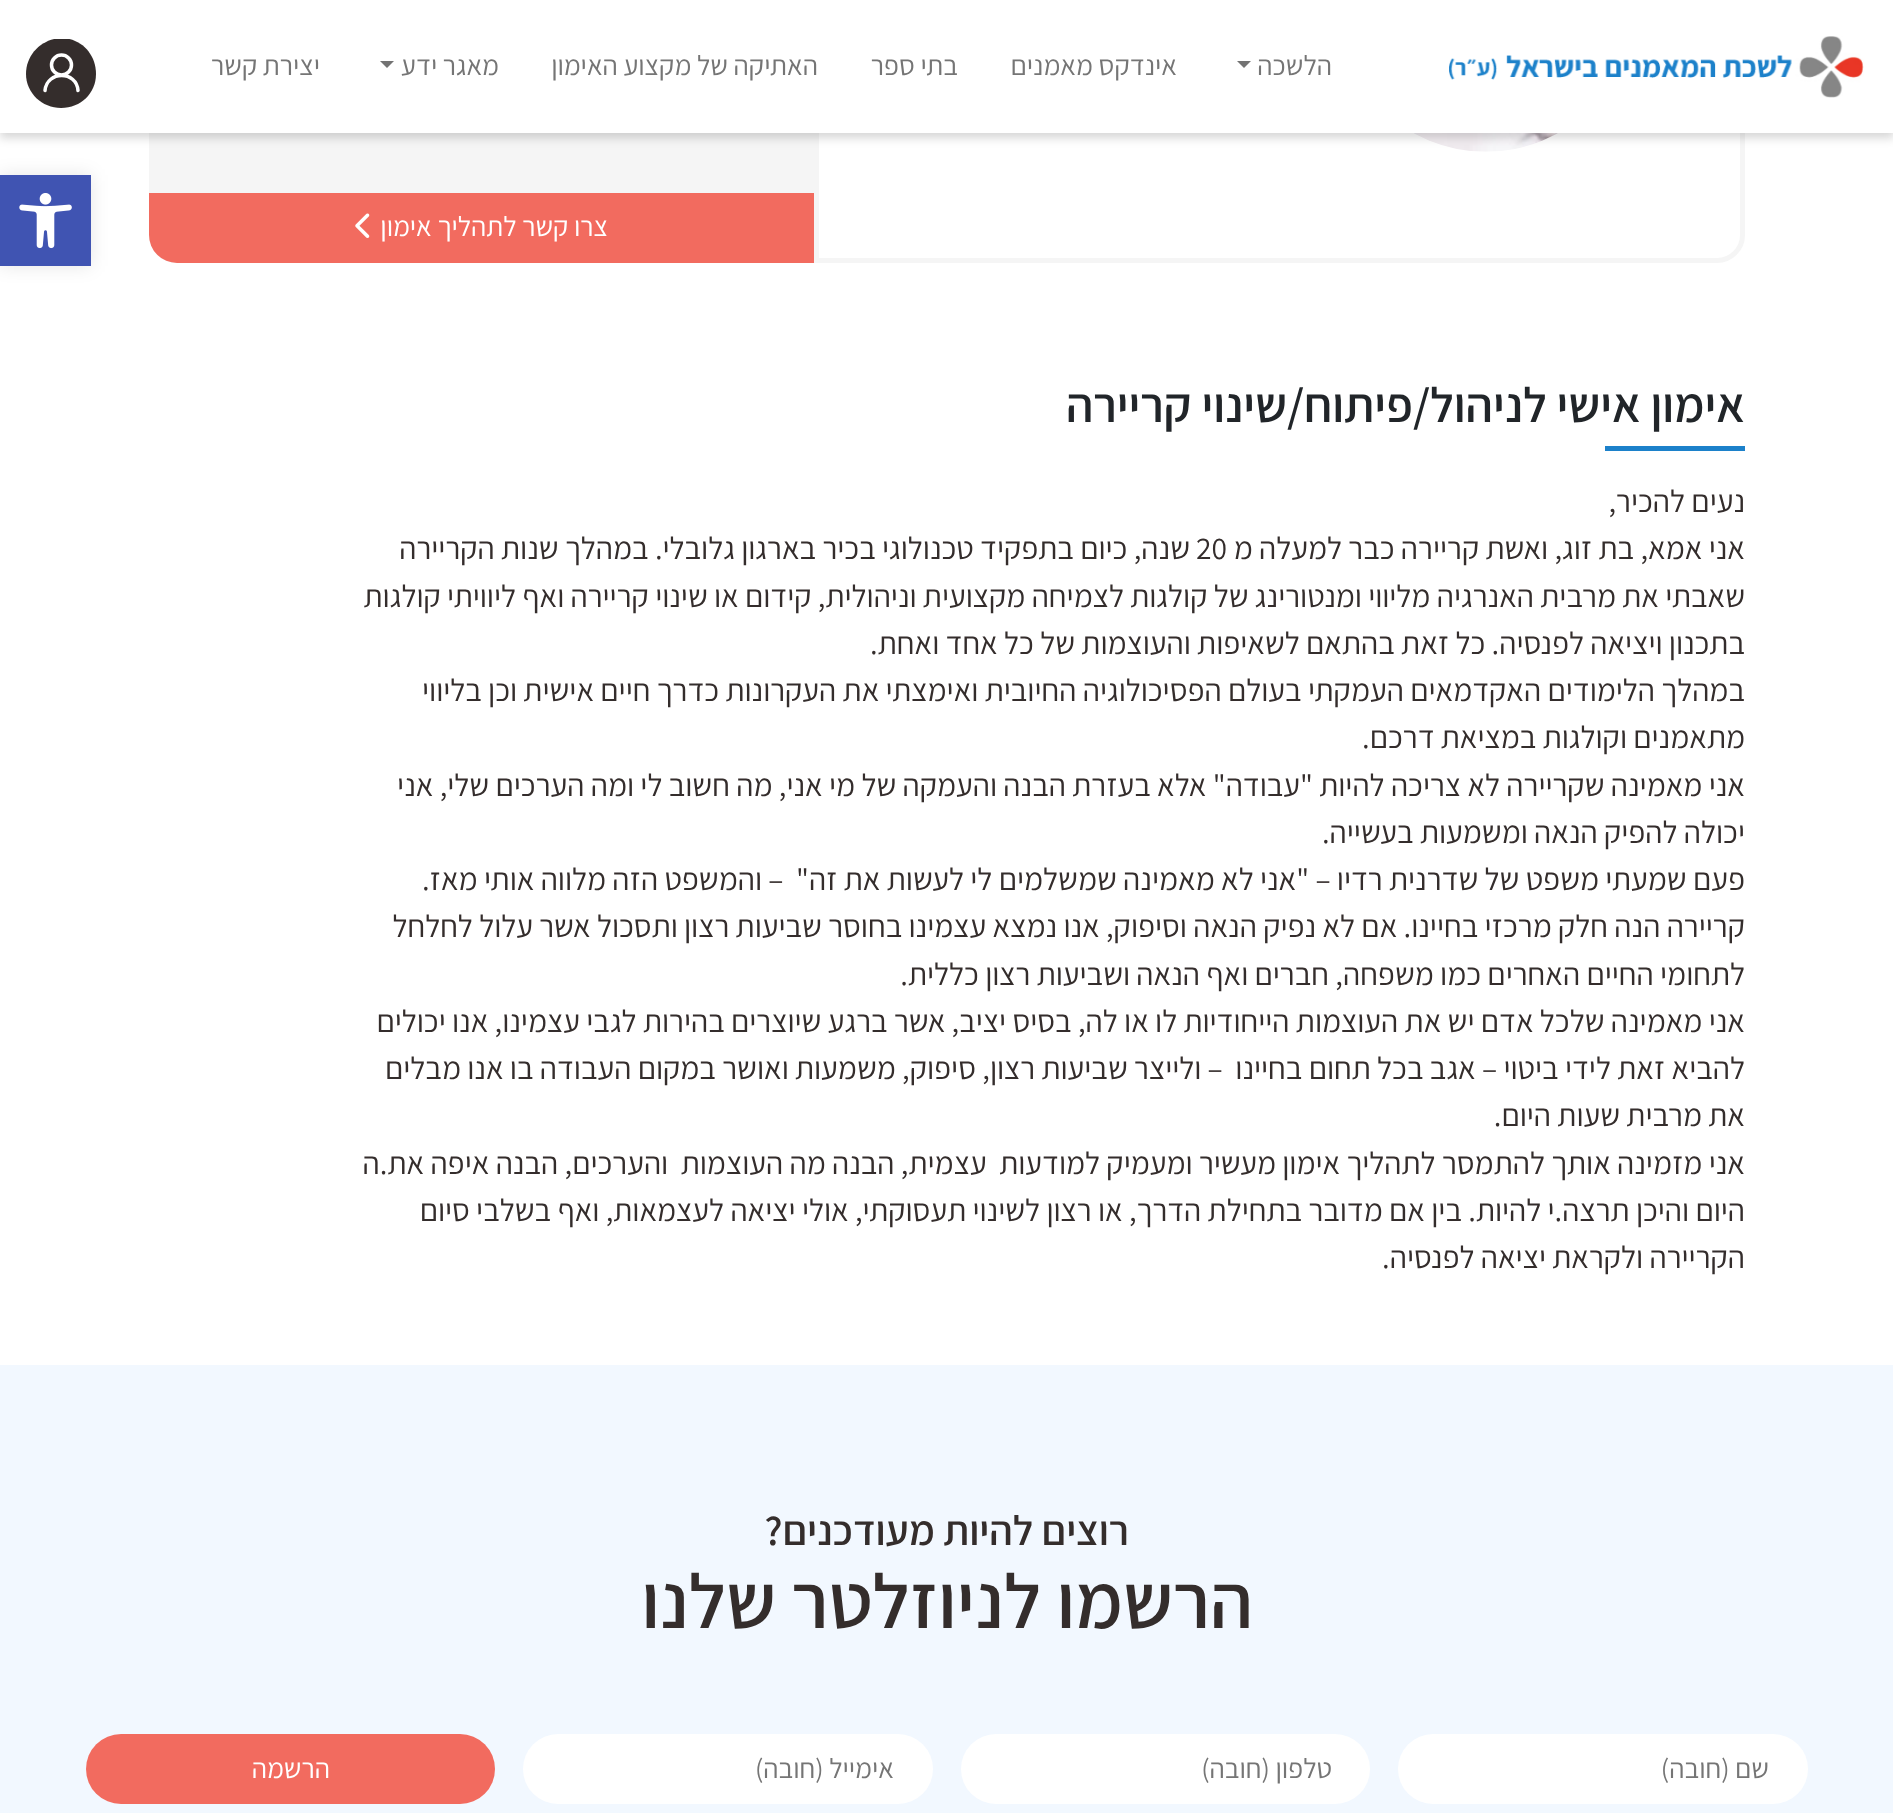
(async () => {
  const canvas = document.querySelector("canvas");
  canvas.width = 1893;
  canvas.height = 1813;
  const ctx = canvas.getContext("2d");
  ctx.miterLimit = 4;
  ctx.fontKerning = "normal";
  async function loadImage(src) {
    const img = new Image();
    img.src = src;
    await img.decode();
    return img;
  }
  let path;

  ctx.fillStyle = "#ffffff";
  ctx.fillRect(0, 0, 1893, 1813);
  path = new Path2D("M816.5-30.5H1717C1731-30.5 1742.5-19 1742.5-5V235C1742.5 249 1731 260.5 1717 260.5H816.5Z");
  ctx.strokeStyle = "#f5f5f5";
  ctx.lineWidth = 5;
  ctx.stroke(path);
  ctx.drawImage(await loadImage("img/2.png"), 1413, 133, 145, 19);
  ctx.fillStyle = "#f5f5f5";
  path = new Path2D("M177-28H814V263H177C161.5 263 149 250.5 149 235V0C149-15.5 161.5-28 177-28Z");
  ctx.fill(path);
  ctx.fillStyle = "rgba(0, 0, 0, 0.16)";
  ctx.filter = "blur(5px)";
  ctx.beginPath();
  ctx.rect(0, 5, 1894, 133);
  ctx.fill();
  ctx.filter = "none";
  ctx.fillStyle = "#ffffff";
  ctx.fillRect(0, 0, 1893, 133);
  ctx.drawImage(await loadImage("img/1.png"), 1449, 36, 415, 62);
  ctx.fillStyle = "#737373";
  path = new Path2D("M1237 61H1251L1244 68Z");
  ctx.fill(path);
  path = new Path2D("M380 61H394L387 68Z");
  ctx.fill(path);
  ctx.save();
  ctx.beginPath();
  ctx.rect(26, 39, 70, 70);
  ctx.clip();
  ctx.fillStyle = "#342d2c";
  path = new Path2D("M61 38C81 38 96 54 96 74C96 93 81 108 61 108C42 108 26 93 26 74C26 54 42 39 61 38Z");
  ctx.fill(path);
  ctx.restore();
  ctx.beginPath();
  ctx.arc(61.5, 65, 10, 0, Math.PI * 2);
  ctx.strokeStyle = "#ffffff";
  ctx.lineWidth = 3.5;
  ctx.stroke();
  path = new Path2D("M78 90.5C76.5 70.5 47 70.5 45 90.5");
  ctx.lineCap = "round";
  ctx.stroke(path);
  ctx.fillStyle = "#f26b5f";
  ctx.beginPath();
  ctx.roundRect(149, 193, 665, 70, [0, 0, 0, 28]);
  ctx.fill();
  ctx.drawImage(await loadImage("img/3.png"), 355, 213, 15, 25);
  ctx.fillStyle = "#1c81ca";
  ctx.fillRect(1605, 446, 140, 5);
  ctx.fillStyle = "#f2f8ff";
  ctx.fillRect(0, 1365, 1893, 448);
  ctx.fillStyle = "#ffffff";
  ctx.beginPath();
  ctx.roundRect(1398, 1734, 410, 70, 35);
  ctx.fill();
  ctx.beginPath();
  ctx.roundRect(961, 1734, 409, 70, 35);
  ctx.fill();
  ctx.beginPath();
  ctx.roundRect(523, 1734, 410, 70, 35);
  ctx.fill();
  ctx.fillStyle = "#f26b5f";
  ctx.beginPath();
  ctx.roundRect(86, 1734, 409, 70, 35);
  ctx.fill();
  ctx.fillStyle = "rgba(0, 0, 0, 0.1)";
  ctx.filter = "blur(9px)";
  ctx.beginPath();
  ctx.rect(0, 175, 91, 91);
  ctx.fill();
  ctx.filter = "none";
  ctx.fillStyle = "#4054b2";
  ctx.fillRect(0, 175, 91, 91);
  ctx.drawImage(await loadImage("img/4.png"), 19, 193, 53, 56);
  ctx.direction = "rtl";
  ctx.font = "28px Assistant";
  ctx.fillStyle = "#757575";
  for (const [text, x, y] of [
    ["הלשכה", 1332, 75],
    ["אינדקס מאמנים", 1177, 75],
    ["בתי ספר", 958, 75],
    ["האתיקה של מקצוע האימון", 818, 75],
    ["מאגר ידע", 499, 75],
    ["יצירת קשר", 320, 75],
  ]) {
    ctx.fillText(text, x, y);
  }
  ctx.fillStyle = "#ffffff";
  ctx.fillText("צרו קשר לתהליך אימון", 608, 236);
  ctx.font = "600 49px Assistant";
  ctx.fillStyle = "#212529";
  ctx.fillText("אימון אישי לניהול/פיתוח/שינוי קריירה", 1745, 422);
  ctx.font = "31.5px Assistant";
  ctx.fillStyle = "#342d2c";
  ctx.fillText("נעים להכיר,", 1745, 512);
  ctx.fillText("אני אמא, בת זוג, ואשת קריירה כבר למעלה מ", 1745, 559);
  ctx.direction = "ltr";
  ctx.fillText("20", 1196, 559);
  ctx.direction = "rtl";
  for (const [text, x, y] of [
    ["שנה, כיום בתפקיד טכנולוגי בכיר בארגון גלובלי. במהלך שנות הקריירה", 1190, 559],
    ["שאבתי את מרבית האנרגיה מליווי ומנטורינג של קולגות לצמיחה מקצועית וניהולית, קידום או שינוי קריירה ואף ליוויתי קולגות", 1745, 607],
    ["בתכנון ויציאה לפנסיה. כל זאת בהתאם לשאיפות והעוצמות של כל אחד ואחת.", 1745, 654],
    ["במהלך הלימודים האקדמאים העמקתי בעולם הפסיכולוגיה החיובית ואימצתי את העקרונות כדרך חיים אישית וכן בליווי", 1745, 701],
    ["מתאמנים וקולגות במציאת דרכם.", 1745, 748],
    ["אני מאמינה שקריירה לא צריכה להיות \"עבודה\" אלא בעזרת הבנה והעמקה של מי אני, מה חשוב לי ומה הערכים שלי, אני", 1745, 796],
    ["יכולה להפיק הנאה ומשמעות בעשייה.", 1745, 843],
    ["פעם שמעתי משפט של שדרנית רדיו – \"אני לא מאמינה שמשלמים לי לעשות את זה\"  – והמשפט הזה מלווה אותי מאז.", 1745, 890],
    ["קריירה הנה חלק מרכזי בחיינו. אם לא נפיק הנאה וסיפוק, אנו נמצא עצמינו בחוסר שביעות רצון ותסכול אשר עלול לחלחל", 1745, 937],
    ["לתחומי החיים האחרים כמו משפחה, חברים ואף הנאה ושביעות רצון כללית.", 1745, 985],
    ["אני מאמינה שלכל אדם יש את העוצמות הייחודיות לו או לה, בסיס יציב, אשר ברגע שיוצרים בהירות לגבי עצמינו, אנו יכולים", 1745, 1032],
    ["להביא זאת לידי ביטוי – אגב בכל תחום בחיינו  – ולייצר שביעות רצון, סיפוק, משמעות ואושר במקום העבודה בו אנו מבלים", 1745, 1079],
    ["את מרבית שעות היום.", 1745, 1126],
    ["אני מזמינה אותך להתמסר לתהליך אימון מעשיר ומעמיק למודעות  עצמית, הבנה מה העוצמות  והערכים, הבנה איפה את.ה", 1745, 1174],
    ["היום והיכן תרצה.י להיות. בין אם מדובר בתחילת הדרך, או רצון לשינוי תעסוקתי, אולי יציאה לעצמאות, ואף בשלבי סיום", 1745, 1221],
    ["הקריירה ולקראת יציאה לפנסיה.", 1745, 1268],
  ]) {
    ctx.fillText(text, x, y);
  }
  ctx.font = "600 42px Assistant";
  ctx.fillText("רוצים להיות מעודכנים?", 1129, 1545);
  ctx.font = "600 77px Assistant";
  ctx.fillText("הרשמו לניוזלטר שלנו", 1253, 1628);
  ctx.font = "28px Assistant";
  ctx.fillStyle = "#757575";
  for (const [text, x, y] of [
    ["שם (חובה)", 1769, 1778],
    ["טלפון (חובה)", 1332, 1778],
    ["אימייל (חובה)", 894, 1778],
  ]) {
    ctx.fillText(text, x, y);
  }
  ctx.fillStyle = "#ffffff";
  ctx.fillText("הרשמה", 330, 1778);
})();
